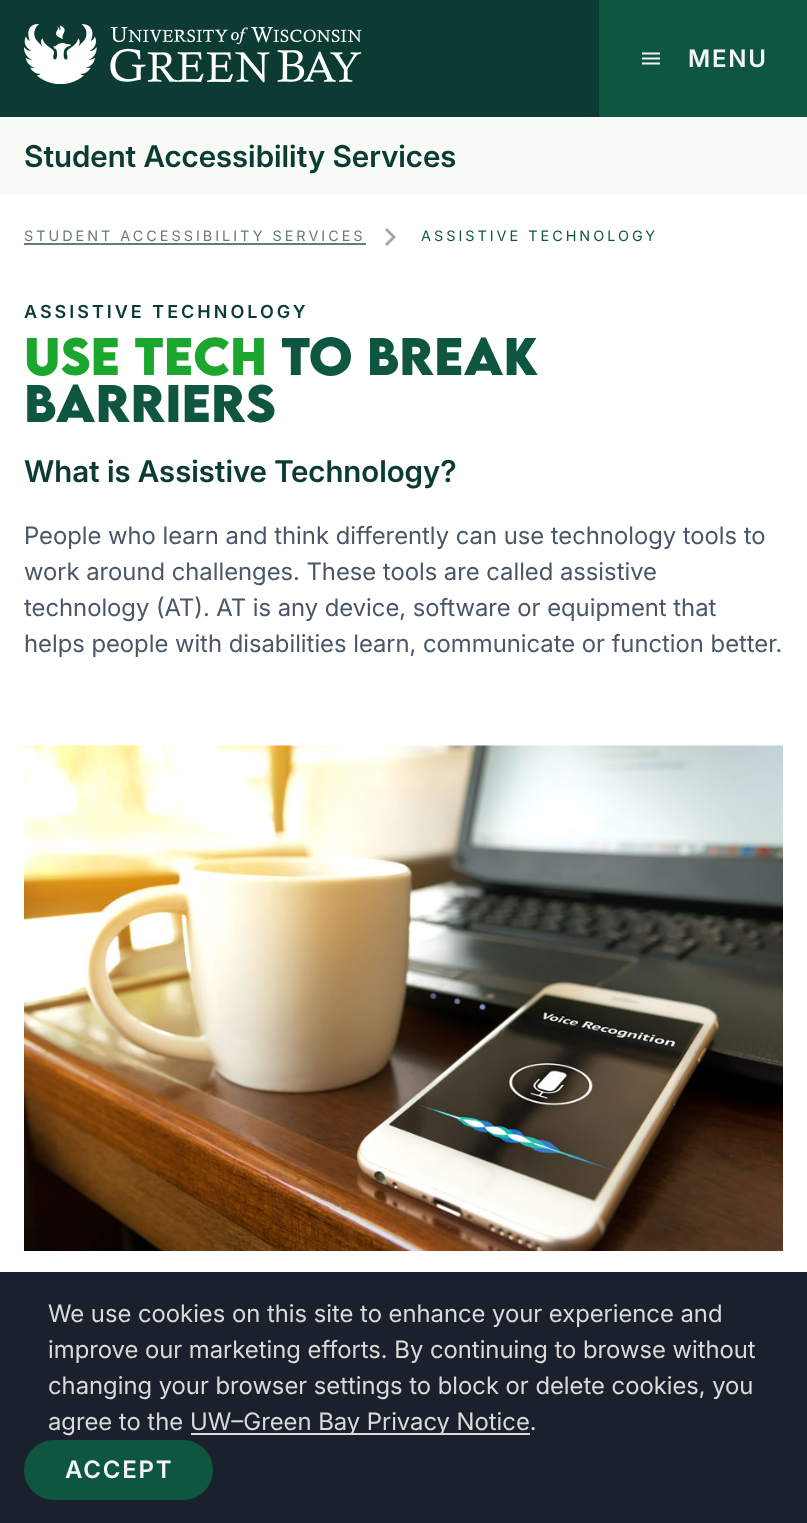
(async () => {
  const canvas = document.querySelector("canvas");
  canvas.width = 807;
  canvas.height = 1523;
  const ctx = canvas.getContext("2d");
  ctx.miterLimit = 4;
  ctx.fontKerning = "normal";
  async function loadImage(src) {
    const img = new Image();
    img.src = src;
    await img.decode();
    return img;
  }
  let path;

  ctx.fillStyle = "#ffffff";
  ctx.fillRect(0, 0, 807, 1523);
  ctx.fillStyle = "#0c3b33";
  ctx.fillRect(0, 0, 599, 117);
  ctx.drawImage(await loadImage("img/1.png"), 24, 24, 338, 60);
  ctx.fillStyle = "#0f5640";
  ctx.fillRect(599, 0, 208, 117);
  ctx.drawImage(await loadImage("img/2.png"), 642, 52, 18, 13);
  ctx.fillStyle = "#f8faf5";
  ctx.fillRect(0, 117, 807, 78);
  ctx.fillStyle = "#677978";
  ctx.fillRect(24, 243, 342, 2);
  ctx.fillStyle = "#9aa9a6";
  path = new Path2D("M385 244L392 237L385 230L387 228L396 237L387 246Z");
  ctx.fill(path);
  ctx.drawImage(await loadImage("img/3.png"), 24, 745, 759, 506);
  ctx.fillStyle = "#1a202c";
  ctx.fillRect(0, 1272, 807, 251);
  ctx.fillStyle = "#dadada";
  ctx.fillRect(191, 1433, 339, 2);
  ctx.fillStyle = "#0f5640";
  ctx.beginPath();
  ctx.roundRect(26.5, 1442.5, 184, 55, 27.5);
  ctx.fill();
  ctx.strokeStyle = "#0f5640";
  ctx.lineWidth = 5;
  ctx.stroke();
  ctx.letterSpacing = "1.75px";
  ctx.font = "600 24px 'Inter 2'";
  ctx.fillStyle = "#f4f5f6";
  ctx.fillText("MENU", 688, 67);
  ctx.letterSpacing = "0px";
  ctx.font = "600 30px Inter";
  ctx.fillStyle = "#0c3b33";
  ctx.fillText("Student Accessibility Services", 24, 167);
  ctx.letterSpacing = "3px";
  ctx.font = "14.4px Inter";
  ctx.fillStyle = "#677978";
  ctx.fillText("STUDENT ACCESSIBILITY SERVICES", 24, 241);
  ctx.fillStyle = "#0f5640";
  ctx.fillText("ASSISTIVE TECHNOLOGY", 421, 241);
  ctx.font = "600 18px 'Inter 2'";
  ctx.fillStyle = "#0c3b33";
  ctx.fillText("ASSISTIVE TECHNOLOGY", 24, 318);
  ctx.letterSpacing = "0px";
  ctx.font = "bold 47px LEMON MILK";
  ctx.fillStyle = "#1ba72e";
  ctx.fillText("Use Tech", 24, 375);
  ctx.fillStyle = "#0f5640";
  ctx.fillText("to Break", 281, 375);
  ctx.fillText("Barriers", 24, 422);
  ctx.font = "600 30px Inter";
  ctx.fillStyle = "#0c3b33";
  ctx.fillText("What is Assistive Technology?", 24, 482);
  ctx.font = "24px 'Inter 2'";
  ctx.fillStyle = "#4a5568";
  for (const [text, x, y] of [
    ["People who learn and think differently can use technology tools to", 24, 544],
    ["work around challenges. These tools are called assistive", 24, 580],
    ["technology (AT). AT is any device, software or equipment that", 24, 616],
    ["helps people with disabilities learn, communicate or function better.", 24, 652],
  ]) {
    ctx.fillText(text, x, y);
  }
  ctx.fillStyle = "#dadada";
  for (const [text, x, y] of [
    ["We use cookies on this site to enhance your experience and", 48, 1322],
    ["improve our marketing efforts. By continuing to browse without", 48, 1358],
    ["changing your browser settings to block or delete cookies, you", 48, 1394],
    ["agree to the", 48, 1430],
    ["UW–Green Bay Privacy Notice.", 190, 1430],
  ]) {
    ctx.fillText(text, x, y);
  }
  ctx.letterSpacing = "1.75px";
  ctx.font = "600 24px 'Inter 2'";
  ctx.fillStyle = "#f4f5f6";
  ctx.fillText("ACCEPT", 65, 1478);
})();
